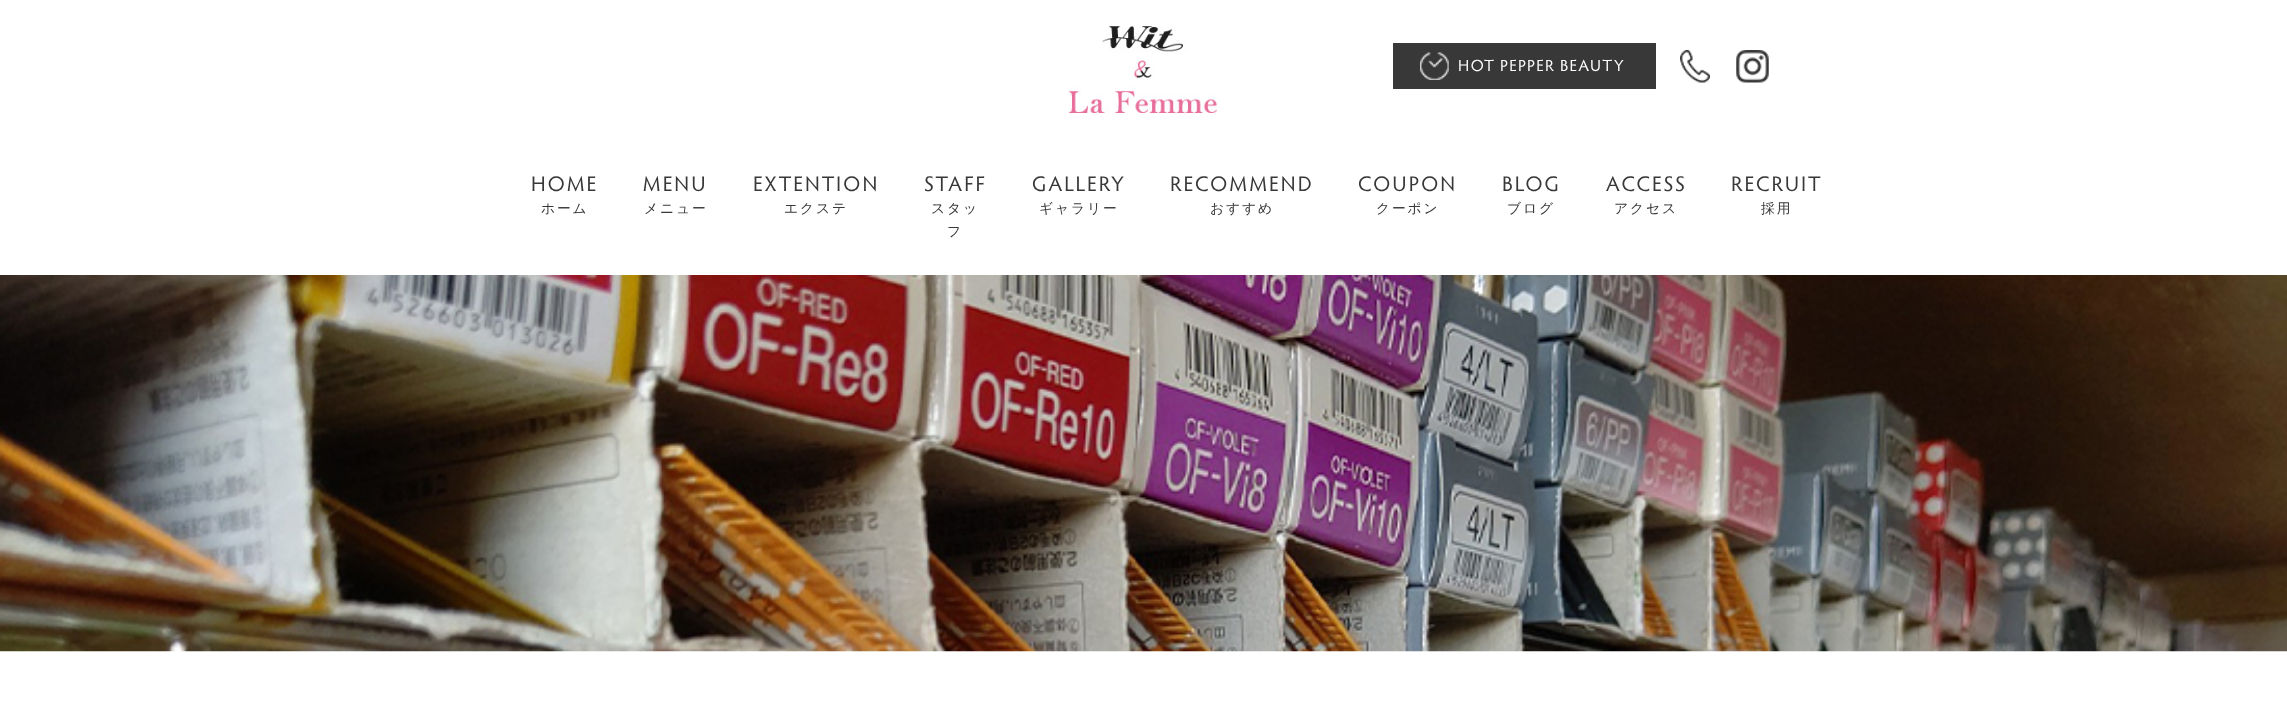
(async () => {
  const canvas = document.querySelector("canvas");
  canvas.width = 2287;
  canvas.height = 715;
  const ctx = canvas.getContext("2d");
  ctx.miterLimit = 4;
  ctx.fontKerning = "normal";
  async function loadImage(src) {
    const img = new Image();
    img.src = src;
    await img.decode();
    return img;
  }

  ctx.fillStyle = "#ffffff";
  ctx.fillRect(0, 0, 2287, 715);
  ctx.drawImage(await loadImage("img/1.png"), 1068, 26, 151, 87);
  ctx.fillStyle = "#383838";
  ctx.fillRect(1393, 43, 263, 46);
  ctx.drawImage(await loadImage("img/2.png"), 1420, 52, 29, 28);
  ctx.drawImage(await loadImage("img/3.png"), 1680, 50, 30, 33);
  ctx.drawImage(await loadImage("img/4.png"), 1736, 50, 33, 33);
  ctx.drawImage(await loadImage("img/5.png"), 0, 275, 2287, 377);
  ctx.letterSpacing = "1.25px";
  ctx.font = "16.25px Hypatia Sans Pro";
  ctx.fillStyle = "#ffffff";
  ctx.fillText("HOT PEPPER BEAUTY", 1458, 71);
  ctx.letterSpacing = "1.9px";
  ctx.font = "21.25px Hypatia Sans Pro";
  ctx.fillStyle = "#383838";
  ctx.fillText("HOME", 531, 191);
  ctx.font = "500 13.75px WenQuanYi Zen Hei";
  ctx.fillText("ホーム", 541, 213);
  ctx.font = "21.25px Hypatia Sans Pro";
  ctx.fillText("MENU", 643, 191);
  ctx.font = "500 13.75px WenQuanYi Zen Hei";
  ctx.fillText("メニュー", 644, 213);
  ctx.font = "21.25px Hypatia Sans Pro";
  ctx.fillText("EXTENTION", 753, 191);
  ctx.font = "500 13.75px WenQuanYi Zen Hei";
  ctx.fillText("エクステ", 784, 213);
  ctx.font = "21.25px Hypatia Sans Pro";
  ctx.fillText("STAFF", 924, 191);
  ctx.font = "500 13.75px WenQuanYi Zen Hei";
  ctx.fillText("スタッ", 931, 213);
  ctx.fillText("フ", 947, 236);
  ctx.font = "21.25px Hypatia Sans Pro";
  ctx.fillText("GALLERY", 1032, 191);
  ctx.font = "500 13.75px WenQuanYi Zen Hei";
  ctx.fillText("ギャラリー", 1039, 213);
  ctx.font = "21.25px Hypatia Sans Pro";
  ctx.fillText("RECOMMEND", 1170, 191);
  ctx.font = "500 13.75px WenQuanYi Zen Hei";
  ctx.fillText("おすすめ", 1210, 213);
  ctx.font = "21.25px Hypatia Sans Pro";
  ctx.fillText("COUPON", 1358, 191);
  ctx.font = "500 13.75px WenQuanYi Zen Hei";
  ctx.fillText("クーポン", 1376, 213);
  ctx.font = "21.25px Hypatia Sans Pro";
  ctx.fillText("BLOG", 1502, 191);
  ctx.font = "500 13.75px WenQuanYi Zen Hei";
  ctx.fillText("ブログ", 1507, 213);
  ctx.font = "21.25px Hypatia Sans Pro";
  ctx.fillText("ACCESS", 1606, 191);
  ctx.font = "500 13.75px WenQuanYi Zen Hei";
  ctx.fillText("アクセス", 1614, 213);
  ctx.font = "21.25px Hypatia Sans Pro";
  ctx.fillText("RECRUIT", 1731, 191);
  ctx.font = "500 13.75px WenQuanYi Zen Hei";
  ctx.fillText("採用", 1761, 213);
})();
